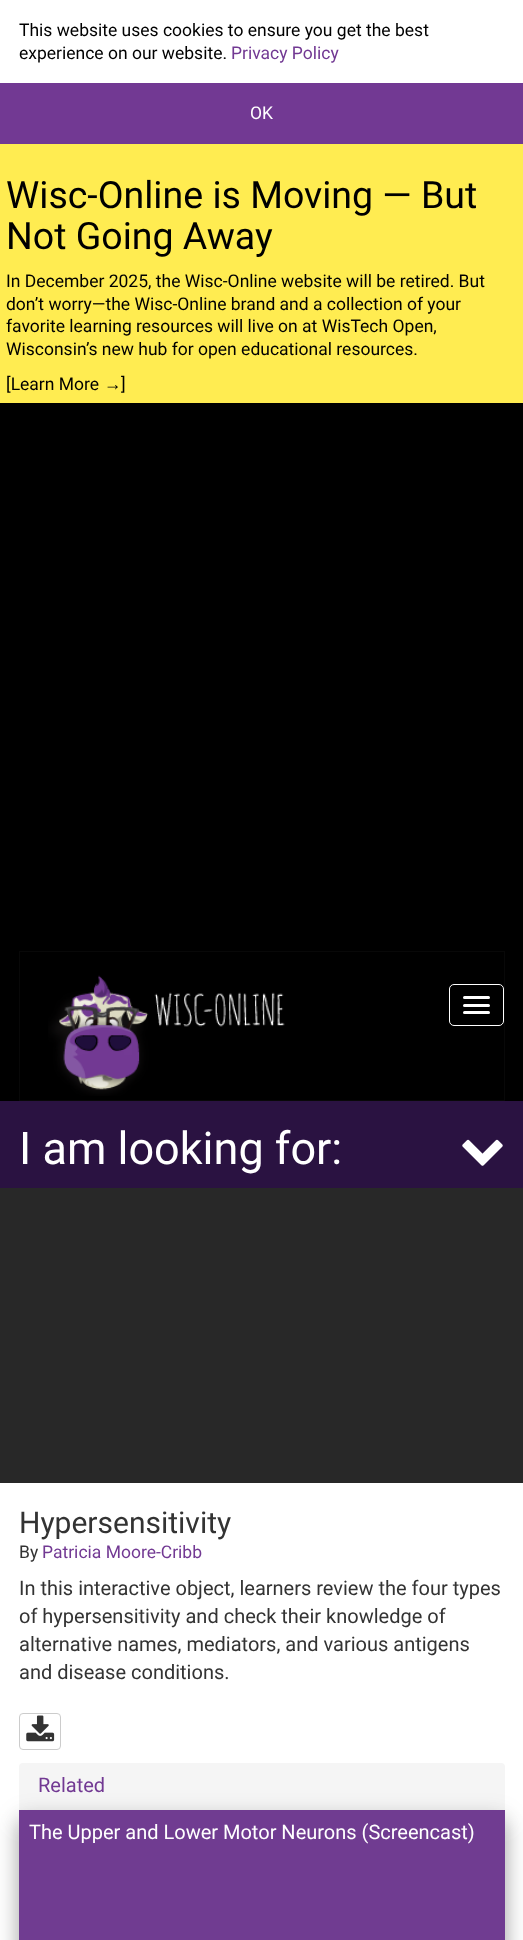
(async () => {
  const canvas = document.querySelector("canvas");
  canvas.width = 523;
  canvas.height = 1940;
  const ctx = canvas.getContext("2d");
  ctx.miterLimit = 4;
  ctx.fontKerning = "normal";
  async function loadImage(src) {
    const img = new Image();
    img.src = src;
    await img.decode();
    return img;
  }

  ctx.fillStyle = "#ffffff";
  ctx.fillRect(0, 0, 523, 1940);
  for (const [x, y, w, h, color] of [
    [0, 83, 523, 61, "#723993"],
    [0, 144, 523, 259, "#ffec51"],
    [0, 403, 523, 698, "#000000"],
  ]) {
    ctx.fillStyle = color;
    ctx.fillRect(x, y, w, h);
  }
  ctx.strokeStyle = "#080808";
  ctx.strokeRect(19.5, 951.5, 485, 149);
  ctx.drawImage(await loadImage("img/1.png"), 48, 975, 237, 121);
  ctx.beginPath();
  ctx.roundRect(449.5, 984.5, 54, 41, 4.5);
  ctx.strokeStyle = "#ffffff";
  ctx.stroke();
  ctx.fillStyle = "#ffffff";
  ctx.beginPath();
  ctx.roundRect(463, 996, 27, 3, 1.5);
  ctx.fill();
  ctx.beginPath();
  ctx.roundRect(463, 1004, 27, 3, 1.5);
  ctx.fill();
  ctx.beginPath();
  ctx.roundRect(463, 1011, 27, 3, 1.5);
  ctx.fill();
  ctx.fillStyle = "#2a1241";
  ctx.fillRect(0, 1101, 523, 87);
  ctx.drawImage(await loadImage("img/2.png"), 462, 1139, 41, 27);
  ctx.fillStyle = "#282828";
  ctx.fillRect(0, 1188, 523, 295);
  ctx.beginPath();
  ctx.roundRect(19.5, 1713.5, 41, 36, 3.5);
  ctx.strokeStyle = "#cccccc";
  ctx.stroke();
  ctx.drawImage(await loadImage("img/3.png"), 26, 1715, 29, 27);
  ctx.fillStyle = "#f5f5f5";
  ctx.beginPath();
  ctx.roundRect(19, 1763, 486, 47, [4, 4, 0, 0]);
  ctx.fill();
  ctx.fillStyle = "rgba(0, 0, 0, 0.19)";
  ctx.filter = "blur(12.5px)";
  ctx.beginPath();
  ctx.rect(19, 1818, 486, 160);
  ctx.fill();
  ctx.filter = "none";
  ctx.fillStyle = "rgba(0, 0, 0, 0.2)";
  ctx.filter = "blur(10px)";
  ctx.beginPath();
  ctx.rect(19, 1823, 486, 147);
  ctx.fill();
  ctx.filter = "none";
  ctx.fillStyle = "#703c91";
  ctx.fillRect(19, 1810, 486, 130);
  ctx.font = "17.5px Roboto";
  ctx.fillStyle = "#000000";
  ctx.fillText("This website uses cookies to ensure you get the best", 19, 36);
  ctx.fillText("experience on our website.", 19, 59);
  ctx.fillStyle = "#723993";
  ctx.fillText("Privacy Policy", 231, 59);
  ctx.fillStyle = "#ffffff";
  ctx.fillText("OK", 250, 119);
  ctx.font = "37.5px Roboto";
  ctx.fillStyle = "#000000";
  ctx.fillText("Wisc-Online is Moving — But", 6, 208);
  ctx.fillText("Not Going Away", 6, 249);
  ctx.font = "17.5px Roboto";
  for (const [text, x, y] of [
    ["In December 2025, the Wisc-Online website will be retired. But", 6, 287],
    ["don’t worry—the Wisc-Online brand and a collection of your", 6, 310],
    ["favorite learning resources will live on at WisTech Open,", 6, 332],
    ["Wisconsin’s new hub for open educational resources.", 6, 355],
    ["[Learn More", 6, 390],
  ]) {
    ctx.fillText(text, x, y);
  }
  ctx.font = "17.5px Liberation Sans";
  ctx.fillText("→", 104, 390);
  ctx.font = "17.5px Roboto";
  ctx.fillText("]", 121, 390);
  ctx.font = "45px Roboto";
  ctx.fillStyle = "#ffffff";
  ctx.fillText("I am looking for:", 19, 1164);
  ctx.font = "30px Roboto";
  ctx.fillStyle = "#333333";
  ctx.fillText("Hypersensitivity", 19, 1533);
  ctx.font = "17.5px Roboto";
  ctx.fillText("By", 19, 1558);
  ctx.fillStyle = "#723993";
  ctx.fillText("Patricia Moore-Cribb", 42, 1558);
  ctx.font = "20px Roboto";
  ctx.fillStyle = "#333333";
  for (const [text, x, y] of [
    ["In this interactive object, learners review the four types", 19, 1595],
    ["of hypersensitivity and check their knowledge of", 19, 1623],
    ["alternative names, mediators, and various antigens", 19, 1651],
    ["and disease conditions.", 19, 1679],
  ]) {
    ctx.fillText(text, x, y);
  }
  ctx.fillStyle = "#723993";
  ctx.fillText("Related", 38, 1792);
  ctx.fillStyle = "#ffffff";
  ctx.fillText("The Upper and Lower Motor Neurons (Screencast)", 29, 1839);
})();
